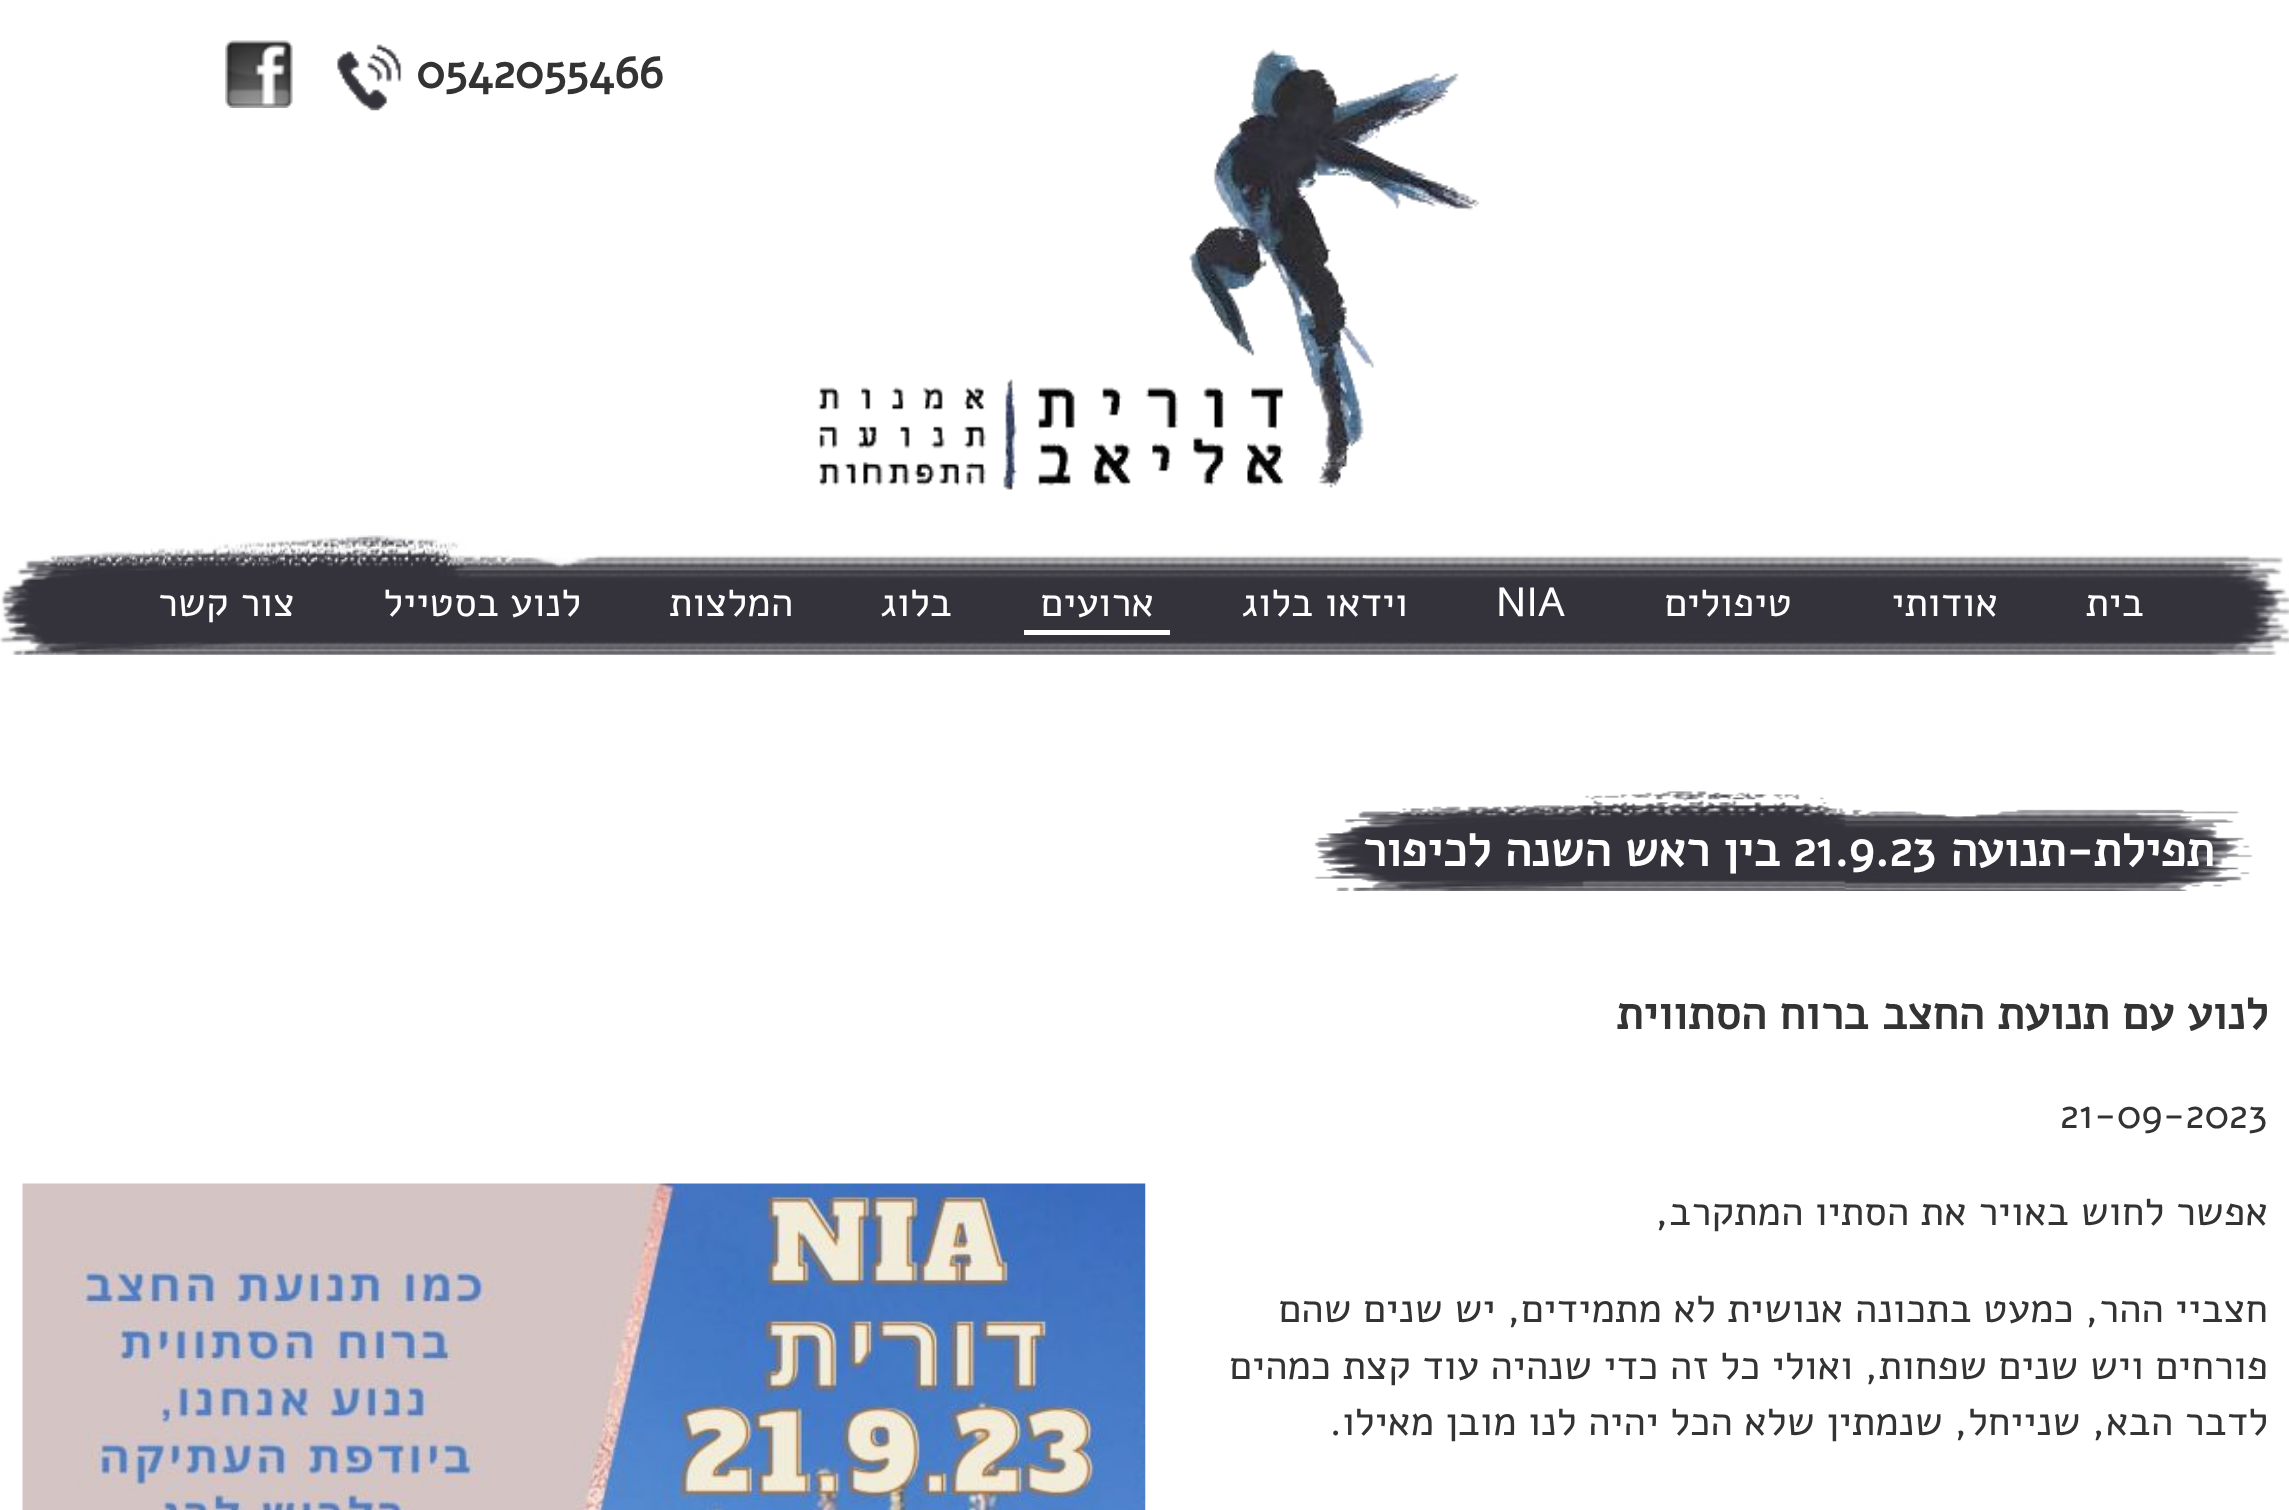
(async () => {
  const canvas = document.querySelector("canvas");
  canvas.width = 2289;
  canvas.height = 1510;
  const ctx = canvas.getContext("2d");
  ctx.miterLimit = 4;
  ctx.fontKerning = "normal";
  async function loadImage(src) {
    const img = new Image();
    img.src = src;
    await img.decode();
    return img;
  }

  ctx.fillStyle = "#ffffff";
  ctx.fillRect(0, 0, 2289, 1510);
  ctx.drawImage(await loadImage("img/1.png"), 817, 48, 663, 442);
  ctx.drawImage(await loadImage("img/2.png"), 337, 44, 65, 67);
  ctx.drawImage(await loadImage("img/3.png"), 225, 40, 68, 68);
  ctx.drawImage(await loadImage("img/4.png"), 0, 535, 2289, 120);
  ctx.fillRect(1024, 630, 146, 5);
  ctx.drawImage(await loadImage("img/5.png"), 1314, 791, 939, 100);
  ctx.drawImage(await loadImage("img/6.png"), 22, 1183, 1124, 327);
  ctx.font = "bold 47px Alef";
  ctx.fillStyle = "#333333";
  ctx.fillText("0542055466", 416, 88);
  ctx.direction = "rtl";
  ctx.font = "40.5px Alef";
  ctx.fillStyle = "#ffffff";
  for (const [text, x, y] of [
    ["בית", 2144, 616],
    ["אודותי", 1998, 616],
    ["טיפולים", 1792, 616],
  ]) {
    ctx.fillText(text, x, y);
  }
  ctx.direction = "ltr";
  ctx.fillText("NIA", 1496, 616);
  ctx.direction = "rtl";
  for (const [text, x, y] of [
    ["וידאו בלוג", 1408, 616],
    ["ארועים", 1154, 616],
    ["בלוג", 952, 616],
    ["המלצות", 793, 616],
    ["לנוע בסטייל", 581, 616],
    ["צור קשר", 295, 616],
  ]) {
    ctx.fillText(text, x, y);
  }
  ctx.font = "bold 48.5px Alef";
  ctx.fillText("תפילת-תנועה", 2214, 866);
  ctx.direction = "ltr";
  ctx.fillText("21.9.23", 1793, 866);
  ctx.direction = "rtl";
  ctx.fillText("בין ראש השנה לכיפור", 1780, 866);
  ctx.font = "bold 46.5px Alef";
  ctx.fillStyle = "#333333";
  ctx.fillText("לנוע עם תנועת החצב ברוח הסתווית", 2268, 1029);
  ctx.direction = "ltr";
  ctx.font = "40.5px Alef";
  ctx.fillText("21-09-2023", 2060, 1128);
  ctx.direction = "rtl";
  for (const [text, x, y] of [
    ["אפשר לחוש באויר את הסתיו המתקרב,", 2268, 1225],
    ["חצביי ההר, כמעט בתכונה אנושית לא מתמידים, יש שנים שהם", 2268, 1322],
    ["פורחים ויש שנים שפחות, ואולי כל זה כדי שנהיה עוד קצת כמהים", 2268, 1379],
    ["לדבר הבא, שנייחל, שנמתין שלא הכל יהיה לנו מובן מאילו.", 2268, 1435],
  ]) {
    ctx.fillText(text, x, y);
  }
})();
